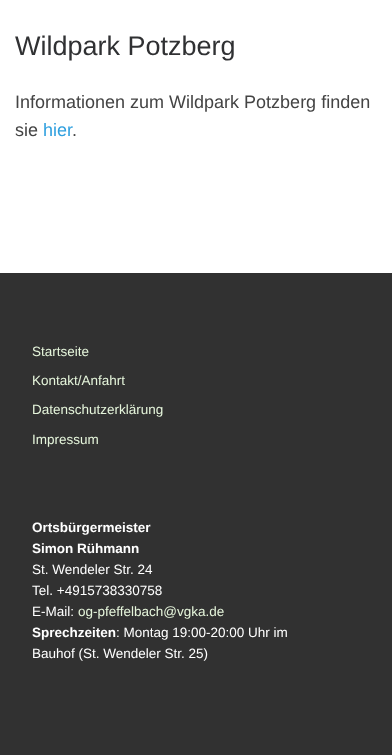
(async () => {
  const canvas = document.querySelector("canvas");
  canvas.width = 392;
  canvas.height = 755;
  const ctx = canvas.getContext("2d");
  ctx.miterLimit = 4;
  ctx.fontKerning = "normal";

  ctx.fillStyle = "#ffffff";
  ctx.fillRect(0, 0, 392, 755);
  ctx.fillStyle = "#313131";
  ctx.fillRect(0, 273, 392, 482);
  ctx.font = "27px Liberation Sans";
  ctx.fillStyle = "#303133";
  ctx.fillText("Wildpark Potzberg", 15, 55);
  ctx.font = "18px Liberation Sans";
  ctx.fillStyle = "#444444";
  ctx.fillText("Informationen zum Wildpark Potzberg finden", 15, 108);
  ctx.fillText("sie", 15, 136);
  ctx.fillStyle = "#30a0df";
  ctx.fillText("hier", 43, 136);
  ctx.fillStyle = "#444444";
  ctx.fillText(".", 72, 136);
  ctx.font = "13.5px Liberation Sans";
  ctx.fillStyle = "#e5f5db";
  for (const [text, x, y] of [
    ["Startseite", 32, 356],
    ["Kontakt/Anfahrt", 32, 385],
    ["Datenschutzerklärung", 32, 414],
    ["Impressum", 32, 444],
  ]) {
    ctx.fillText(text, x, y);
  }
  ctx.font = "bold 13.5px Liberation Sans";
  ctx.fillStyle = "#ffffff";
  ctx.fillText("Ortsbürgermeister", 32, 532);
  ctx.fillText("Simon Rühmann", 32, 553);
  ctx.font = "13.5px Liberation Sans";
  for (const [text, x, y] of [
    ["St. Wendeler Str. 24", 32, 574],
    ["Tel. +4915738330758", 32, 595],
    ["E-Mail:", 32, 616],
  ]) {
    ctx.fillText(text, x, y);
  }
  ctx.fillStyle = "#e5f5db";
  ctx.fillText("og-pfeffelbach@vgka.de", 78, 616);
  ctx.font = "bold 13.5px Liberation Sans";
  ctx.fillStyle = "#ffffff";
  ctx.fillText("Sprechzeiten", 32, 637);
  ctx.font = "13.5px Liberation Sans";
  ctx.fillText(": Montag 19:00-20:00 Uhr im", 116, 637);
  ctx.fillText("Bauhof (St. Wendeler Str. 25)", 32, 658);
})();
